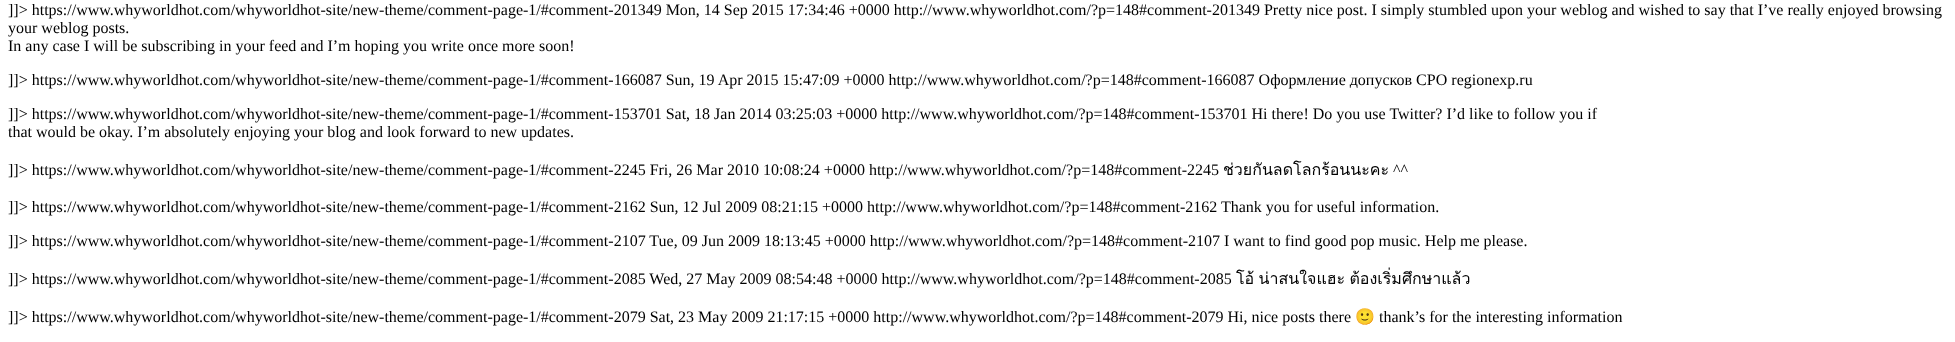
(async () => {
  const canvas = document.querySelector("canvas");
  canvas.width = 1955;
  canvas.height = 342;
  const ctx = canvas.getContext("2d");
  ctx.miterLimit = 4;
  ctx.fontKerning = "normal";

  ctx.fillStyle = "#ffffff";
  ctx.fillRect(0, 0, 1955, 342);
  ctx.font = "16px Liberation Serif";
  ctx.fillStyle = "#000000";
  for (const [text, x, y] of [
    ["]]> https://www.whyworldhot.com/whyworldhot-site/new-theme/comment-page-1/#comment-201349 Mon, 14 Sep 2015 17:34:46 +0000 http://www.whyworldhot.com/?p=148#comment-201349 Pretty nice post. I simply stumbled upon your weblog and wished to say that I’ve really enjoyed browsing", 8, 15],
    ["your weblog posts.", 8, 33],
    ["In any case I will be subscribing in your feed and I’m hoping you write once more soon!", 8, 51],
    ["]]> https://www.whyworldhot.com/whyworldhot-site/new-theme/comment-page-1/#comment-166087 Sun, 19 Apr 2015 15:47:09 +0000 http://www.whyworldhot.com/?p=148#comment-166087 Оформление допусков СРО regionexp.ru", 8, 85],
    ["]]> https://www.whyworldhot.com/whyworldhot-site/new-theme/comment-page-1/#comment-153701 Sat, 18 Jan 2014 03:25:03 +0000 http://www.whyworldhot.com/?p=148#comment-153701 Hi there! Do you use Twitter? I’d like to follow you if", 8, 119],
    ["that would be okay. I’m absolutely enjoying your blog and look forward to new updates.", 8, 137],
    ["]]> https://www.whyworldhot.com/whyworldhot-site/new-theme/comment-page-1/#comment-2245 Fri, 26 Mar 2010 10:08:24 +0000 http://www.whyworldhot.com/?p=148#comment-2245", 8, 175],
  ]) {
    ctx.fillText(text, x, y);
  }
  ctx.font = "16px Loma";
  ctx.fillText("ช่วยกันลดโลกร้อนนะคะ", 1223, 175);
  ctx.font = "16px Liberation Serif";
  for (const [text, x, y] of [
    ["^^", 1393, 175],
    ["]]> https://www.whyworldhot.com/whyworldhot-site/new-theme/comment-page-1/#comment-2162 Sun, 12 Jul 2009 08:21:15 +0000 http://www.whyworldhot.com/?p=148#comment-2162 Thank you for useful information.", 8, 212],
    ["]]> https://www.whyworldhot.com/whyworldhot-site/new-theme/comment-page-1/#comment-2107 Tue, 09 Jun 2009 18:13:45 +0000 http://www.whyworldhot.com/?p=148#comment-2107 I want to find good pop music. Help me please.", 8, 246],
    ["]]> https://www.whyworldhot.com/whyworldhot-site/new-theme/comment-page-1/#comment-2085 Wed, 27 May 2009 08:54:48 +0000 http://www.whyworldhot.com/?p=148#comment-2085", 8, 284],
  ]) {
    ctx.fillText(text, x, y);
  }
  ctx.wordSpacing = "-1px";
  ctx.font = "16px Loma";
  ctx.fillText("โอ้ น่าสนใจแฮะ ต้องเริ่มศึกษาแล้ว", 1236, 284);
  ctx.wordSpacing = "0px";
  ctx.font = "16px Liberation Serif";
  ctx.fillText("]]> https://www.whyworldhot.com/whyworldhot-site/new-theme/comment-page-1/#comment-2079 Sat, 23 May 2009 21:17:15 +0000 http://www.whyworldhot.com/?p=148#comment-2079 Hi, nice posts there", 8, 322);
  ctx.font = "16px Noto Color Emoji";
  ctx.fillText("🙂", 1355, 322);
  ctx.font = "16px Liberation Serif";
  ctx.fillText("thank’s for the interesting information", 1379, 322);
})();
